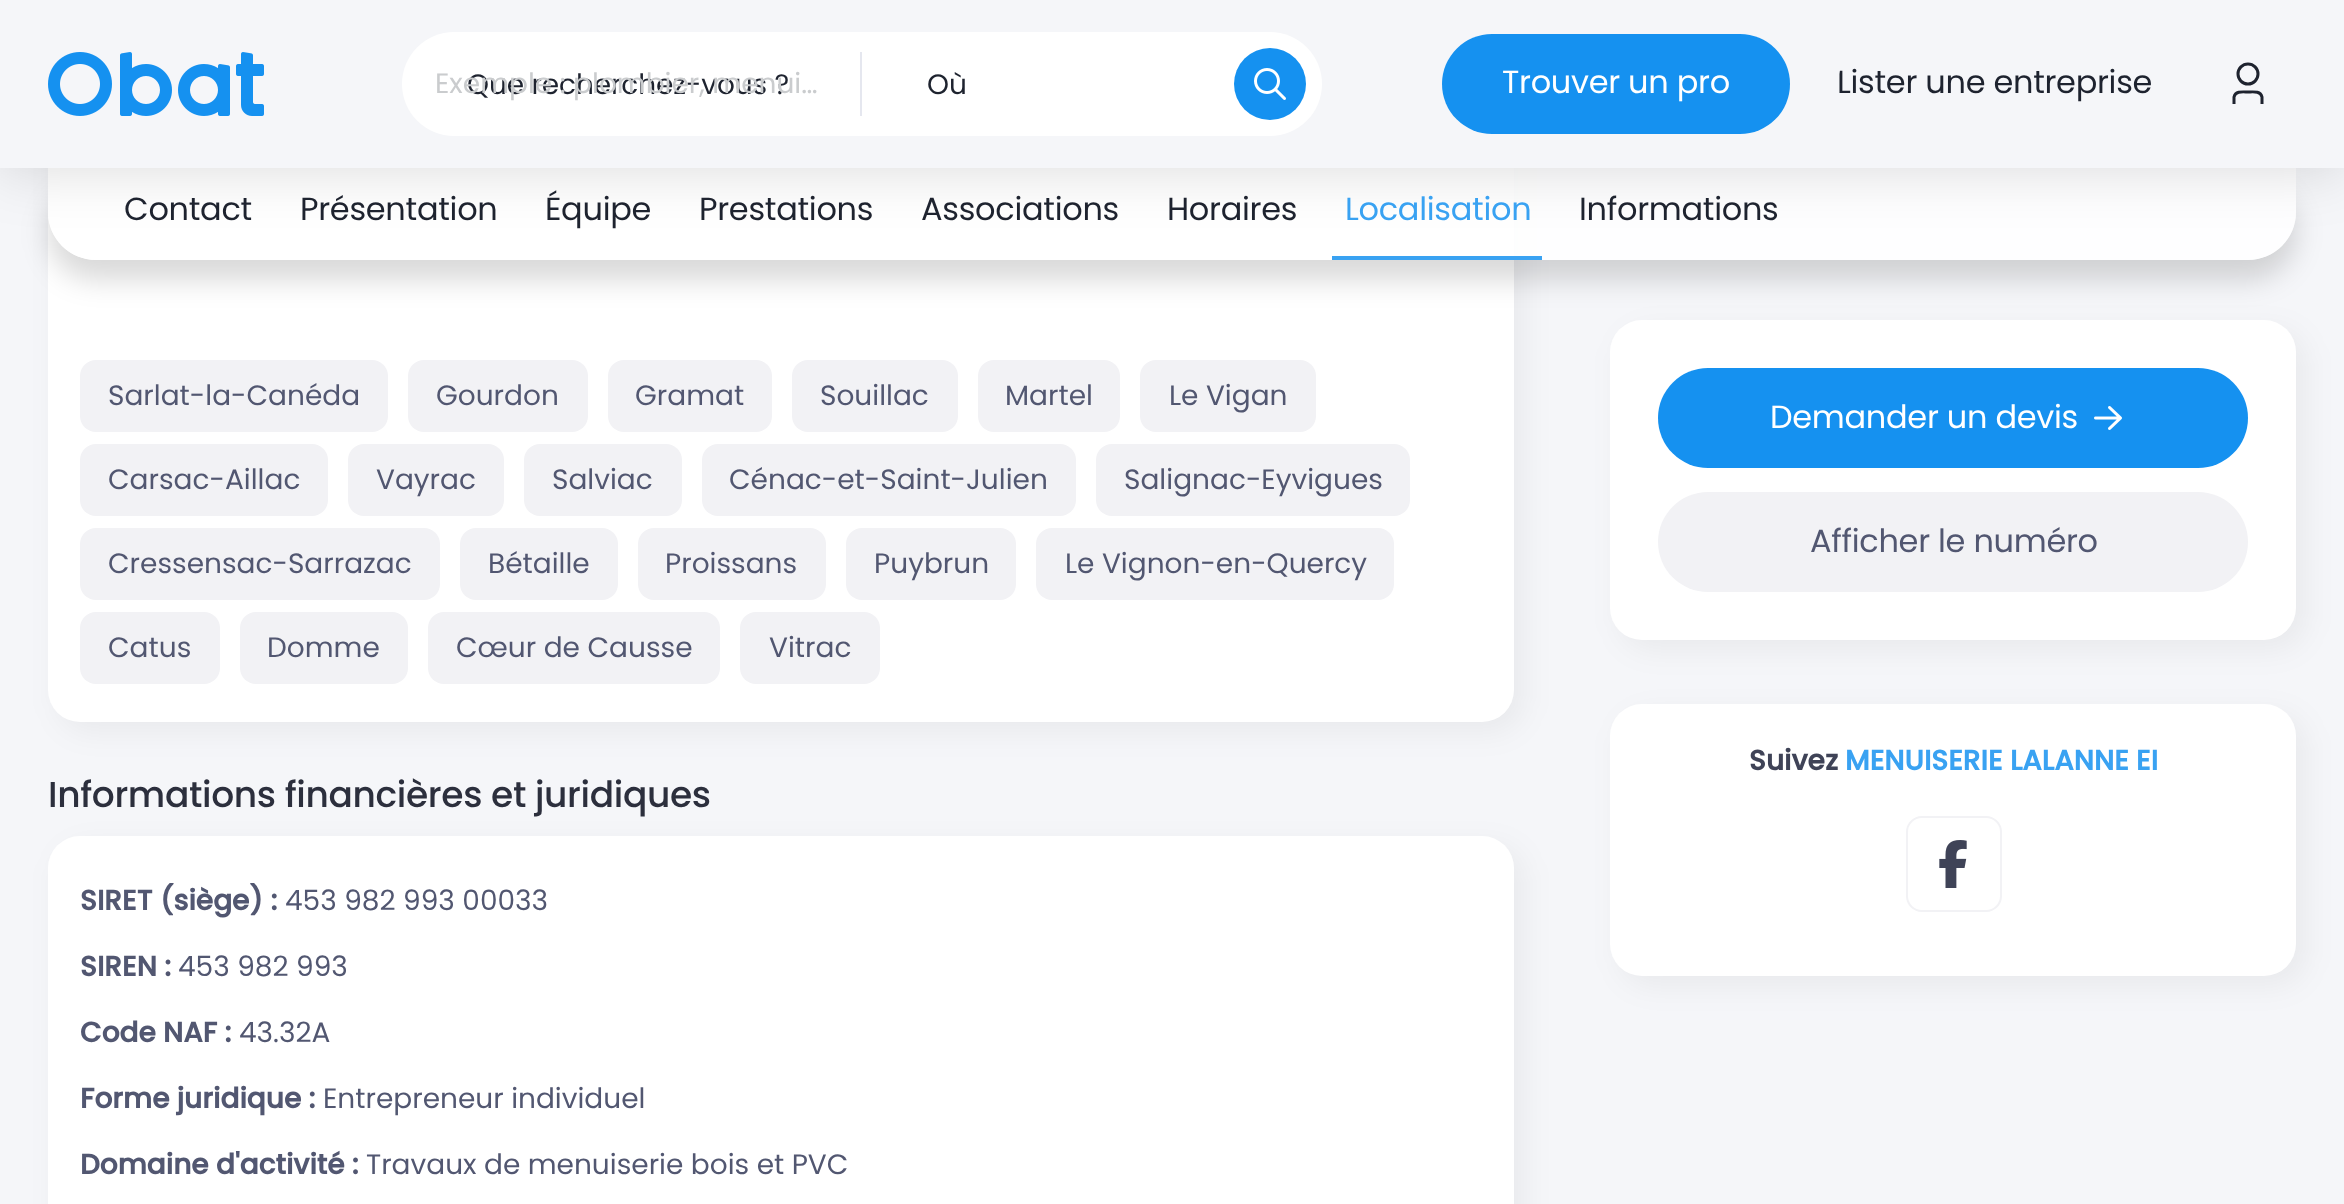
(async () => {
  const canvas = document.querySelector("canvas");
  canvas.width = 2344;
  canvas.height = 1204;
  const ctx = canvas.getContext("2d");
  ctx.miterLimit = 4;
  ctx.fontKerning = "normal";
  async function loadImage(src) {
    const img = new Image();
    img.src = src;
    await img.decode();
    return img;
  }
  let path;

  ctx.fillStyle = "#f5f6f9";
  ctx.fillRect(0, 0, 2344, 1204);
  ctx.fillStyle = "rgba(0, 0, 0, 0.05)";
  ctx.filter = "blur(15px)";
  ctx.beginPath();
  ctx.roundRect(58, -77, 1466, 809, 32);
  ctx.fill();
  ctx.filter = "none";
  ctx.fillStyle = "#ffffff";
  ctx.beginPath();
  ctx.roundRect(48, -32, 1466, 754, 32);
  ctx.fill();
  ctx.fillStyle = "rgba(0, 0, 0, 0.05)";
  ctx.filter = "blur(15px)";
  ctx.beginPath();
  ctx.roundRect(1620, 330, 686, 320, 32);
  ctx.fill();
  ctx.filter = "none";
  ctx.fillStyle = "#ffffff";
  ctx.beginPath();
  ctx.roundRect(1610, 320, 686, 320, 32);
  ctx.fill();
  ctx.save();
  path = new Path2D("M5 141H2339V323H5ZM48 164H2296V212C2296 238.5 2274.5 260 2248 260H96C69.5 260 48 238.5 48 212Z");
  ctx.clip(path, "evenodd");
  ctx.fillStyle = "rgba(0, 0, 0, 0.15)";
  ctx.filter = "blur(14px)";
  ctx.beginPath();
  ctx.roundRect(48, 184, 2248, 96, 48);
  ctx.fill();
  ctx.filter = "none";
  ctx.restore();
  ctx.fillStyle = "rgba(255, 255, 255, 0.9)";
  ctx.beginPath();
  ctx.roundRect(48, 164, 2248, 96, [0, 0, 48, 48]);
  ctx.fill();
  ctx.fillStyle = "#39a2f2";
  ctx.fillRect(1332, 256, 210, 4);
  ctx.fillStyle = "rgba(0, 0, 0, 0.15)";
  ctx.filter = "blur(30px)";
  ctx.beginPath();
  ctx.rect(0, 0, 2344, 168);
  ctx.fill();
  ctx.filter = "none";
  ctx.fillStyle = "#f5f6f9";
  ctx.fillRect(0, 0, 2344, 168);
  ctx.drawImage(await loadImage("img/1.png"), 48, 52, 216, 64);
  ctx.fillStyle = "#ffffff";
  ctx.beginPath();
  ctx.roundRect(402, 32, 920, 104, 52);
  ctx.fill();
  ctx.fillStyle = "#e5e7ef";
  ctx.fillRect(860, 52, 2, 64);
  ctx.fillStyle = "#1591f0";
  ctx.beginPath();
  ctx.arc(1270, 84, 36, 0, Math.PI * 2);
  ctx.fill();
  ctx.drawImage(await loadImage("img/2.png"), 1254, 68, 32, 32);
  ctx.beginPath();
  ctx.roundRect(1442, 34, 348, 100, 50);
  ctx.fill();
  ctx.beginPath();
  ctx.arc(2248, 74, 10, 0, Math.PI * 2);
  ctx.strokeStyle = "#1e232f";
  ctx.lineWidth = 3;
  ctx.stroke();
  path = new Path2D("M2262 104V97C2260.5 90.5 2252.5 92 2248 92C2243.5 92 2235.5 90.5 2234 97V104");
  ctx.stroke(path);
  ctx.fillStyle = "#f2f2f5";
  ctx.beginPath();
  ctx.roundRect(80, 360, 308, 72, 16);
  ctx.fill();
  ctx.beginPath();
  ctx.roundRect(408, 360, 180, 72, 16);
  ctx.fill();
  ctx.beginPath();
  ctx.roundRect(608, 360, 164, 72, 16);
  ctx.fill();
  ctx.beginPath();
  ctx.roundRect(792, 360, 166, 72, 16);
  ctx.fill();
  ctx.beginPath();
  ctx.roundRect(978, 360, 142, 72, 16);
  ctx.fill();
  ctx.beginPath();
  ctx.roundRect(1140, 360, 176, 72, 16);
  ctx.fill();
  ctx.beginPath();
  ctx.roundRect(80, 444, 248, 72, 16);
  ctx.fill();
  ctx.beginPath();
  ctx.roundRect(348, 444, 156, 72, 16);
  ctx.fill();
  ctx.beginPath();
  ctx.roundRect(524, 444, 158, 72, 16);
  ctx.fill();
  ctx.beginPath();
  ctx.roundRect(702, 444, 374, 72, 16);
  ctx.fill();
  ctx.beginPath();
  ctx.roundRect(1096, 444, 314, 72, 16);
  ctx.fill();
  ctx.beginPath();
  ctx.roundRect(80, 528, 360, 72, 16);
  ctx.fill();
  ctx.beginPath();
  ctx.roundRect(460, 528, 158, 72, 16);
  ctx.fill();
  ctx.beginPath();
  ctx.roundRect(638, 528, 188, 72, 16);
  ctx.fill();
  ctx.beginPath();
  ctx.roundRect(846, 528, 170, 72, 16);
  ctx.fill();
  ctx.beginPath();
  ctx.roundRect(1036, 528, 358, 72, 16);
  ctx.fill();
  ctx.beginPath();
  ctx.roundRect(80, 612, 140, 72, 16);
  ctx.fill();
  ctx.beginPath();
  ctx.roundRect(240, 612, 168, 72, 16);
  ctx.fill();
  ctx.beginPath();
  ctx.roundRect(428, 612, 292, 72, 16);
  ctx.fill();
  ctx.beginPath();
  ctx.roundRect(740, 612, 140, 72, 16);
  ctx.fill();
  ctx.fillStyle = "rgba(0, 0, 0, 0.05)";
  ctx.filter = "blur(15px)";
  ctx.beginPath();
  ctx.roundRect(58, 846, 1466, 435, 32);
  ctx.fill();
  ctx.filter = "none";
  ctx.fillStyle = "#ffffff";
  ctx.beginPath();
  ctx.roundRect(48, 836, 1466, 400, 32);
  ctx.fill();
  ctx.fillStyle = "#1591f0";
  ctx.beginPath();
  ctx.roundRect(1658, 368, 590, 100, 50);
  ctx.fill();
  ctx.drawImage(await loadImage("img/3.png"), 2094, 406, 28, 24);
  ctx.fillStyle = "#f2f2f5";
  ctx.beginPath();
  ctx.roundRect(1658, 492, 590, 100, 50);
  ctx.fill();
  ctx.fillStyle = "rgba(0, 0, 0, 0.05)";
  ctx.filter = "blur(15px)";
  ctx.beginPath();
  ctx.roundRect(1620, 714, 686, 272, 32);
  ctx.fill();
  ctx.filter = "none";
  ctx.fillStyle = "#ffffff";
  ctx.beginPath();
  ctx.roundRect(1610, 704, 686, 272, 32);
  ctx.fill();
  ctx.beginPath();
  ctx.roundRect(1907, 817, 94, 94, 15);
  ctx.strokeStyle = "#f2f2f5";
  ctx.lineWidth = 2;
  ctx.stroke();
  ctx.drawImage(await loadImage("img/4.png"), 1939, 840, 28, 48);
  ctx.letterSpacing = "-0.1px";
  ctx.font = "28px Poppins";
  ctx.fillStyle = "#1e232f";
  ctx.fillText("Que recherchez-vous ?", 467, 94);
  ctx.letterSpacing = "0px";
  ctx.fillStyle = "#caccce";
  ctx.fillText("Exemple : plombier, menui…", 435, 93);
  ctx.letterSpacing = "-0.1px";
  ctx.fillStyle = "#1e232f";
  ctx.fillText("Où", 927, 94);
  ctx.letterSpacing = "-0.3px";
  ctx.font = "32px Poppins";
  ctx.fillStyle = "#ffffff";
  ctx.fillText("Trouver un pro", 1502, 93);
  ctx.save();
  ctx.beginPath();
  ctx.roundRect(1838, 34, 314, 100, 50);
  ctx.clip();
  ctx.fillStyle = "#1e232f";
  ctx.fillText("Lister une entreprise", 1837, 93);
  ctx.restore();
  ctx.fillStyle = "#1e232f";
  for (const [text, x, y] of [
    ["Contact", 124, 220],
    ["Présentation", 300, 220],
    ["Équipe", 545, 220],
    ["Prestations", 699, 220],
    ["Associations", 921, 220],
    ["Horaires", 1167, 220],
  ]) {
    ctx.fillText(text, x, y);
  }
  ctx.fillStyle = "#39a2f2";
  ctx.fillText("Localisation", 1345, 220);
  ctx.fillStyle = "#1e232f";
  ctx.fillText("Informations", 1579, 220);
  ctx.letterSpacing = "0px";
  ctx.font = "28px Poppins";
  ctx.fillStyle = "#525771";
  for (const [text, x, y] of [
    ["Sarlat-la-Canéda", 108, 405],
    ["Gourdon", 436, 405],
    ["Gramat", 635, 405],
    ["Souillac", 820, 405],
    ["Martel", 1005, 405],
    ["Le Vigan", 1169, 405],
    ["Carsac-Aillac", 108, 489],
    ["Vayrac", 376, 489],
    ["Salviac", 552, 489],
    ["Cénac-et-Saint-Julien", 729, 489],
    ["Salignac-Eyvigues", 1124, 489],
    ["Cressensac-Sarrazac", 108, 573],
    ["Bétaille", 488, 573],
    ["Proissans", 665, 573],
    ["Puybrun", 874, 573],
    ["Le Vignon-en-Quercy", 1065, 573],
    ["Catus", 108, 657],
    ["Domme", 267, 657],
    ["Cœur de Causse", 456, 657],
    ["Vitrac", 769, 657],
  ]) {
    ctx.fillText(text, x, y);
  }
  ctx.letterSpacing = "-0.35px";
  ctx.font = "500 36px Poppins";
  ctx.fillStyle = "#2c2f3d";
  ctx.fillText("Informations financières et juridiques", 48, 807);
  ctx.letterSpacing = "0px";
  ctx.font = "bold 28px Poppins";
  ctx.fillStyle = "#525771";
  ctx.fillText("SIRET (siège) :", 80, 910);
  ctx.font = "28px Poppins";
  ctx.fillText("453 982 993 00033", 285, 910);
  ctx.font = "bold 28px Poppins";
  ctx.fillText("SIREN :", 80, 976);
  ctx.font = "28px Poppins";
  ctx.fillText("453 982 993", 178, 976);
  ctx.font = "bold 28px Poppins";
  ctx.fillText("Code NAF :", 80, 1042);
  ctx.font = "28px Poppins";
  ctx.fillText("43.32A", 239, 1042);
  ctx.font = "bold 28px Poppins";
  ctx.fillText("Forme juridique :", 80, 1108);
  ctx.font = "28px Poppins";
  ctx.fillText("Entrepreneur individuel", 323, 1108);
  ctx.font = "bold 28px Poppins";
  ctx.fillText("Domaine d'activité :", 80, 1174);
  ctx.font = "28px Poppins";
  ctx.fillText("Travaux de menuiserie bois et PVC", 366, 1174);
  ctx.letterSpacing = "-0.3px";
  ctx.font = "32px Poppins";
  ctx.fillStyle = "#ffffff";
  ctx.fillText("Demander un devis", 1770, 428);
  ctx.fillStyle = "#525771";
  ctx.fillText("Afficher le numéro", 1810, 552);
  ctx.letterSpacing = "0px";
  ctx.font = "bold 28px Poppins";
  ctx.fillStyle = "#3f4357";
  ctx.fillText("Suivez", 1749, 770);
  ctx.fillStyle = "#39a2f2";
  ctx.fillText("MENUISERIE LALANNE EI", 1845, 770);
})();
